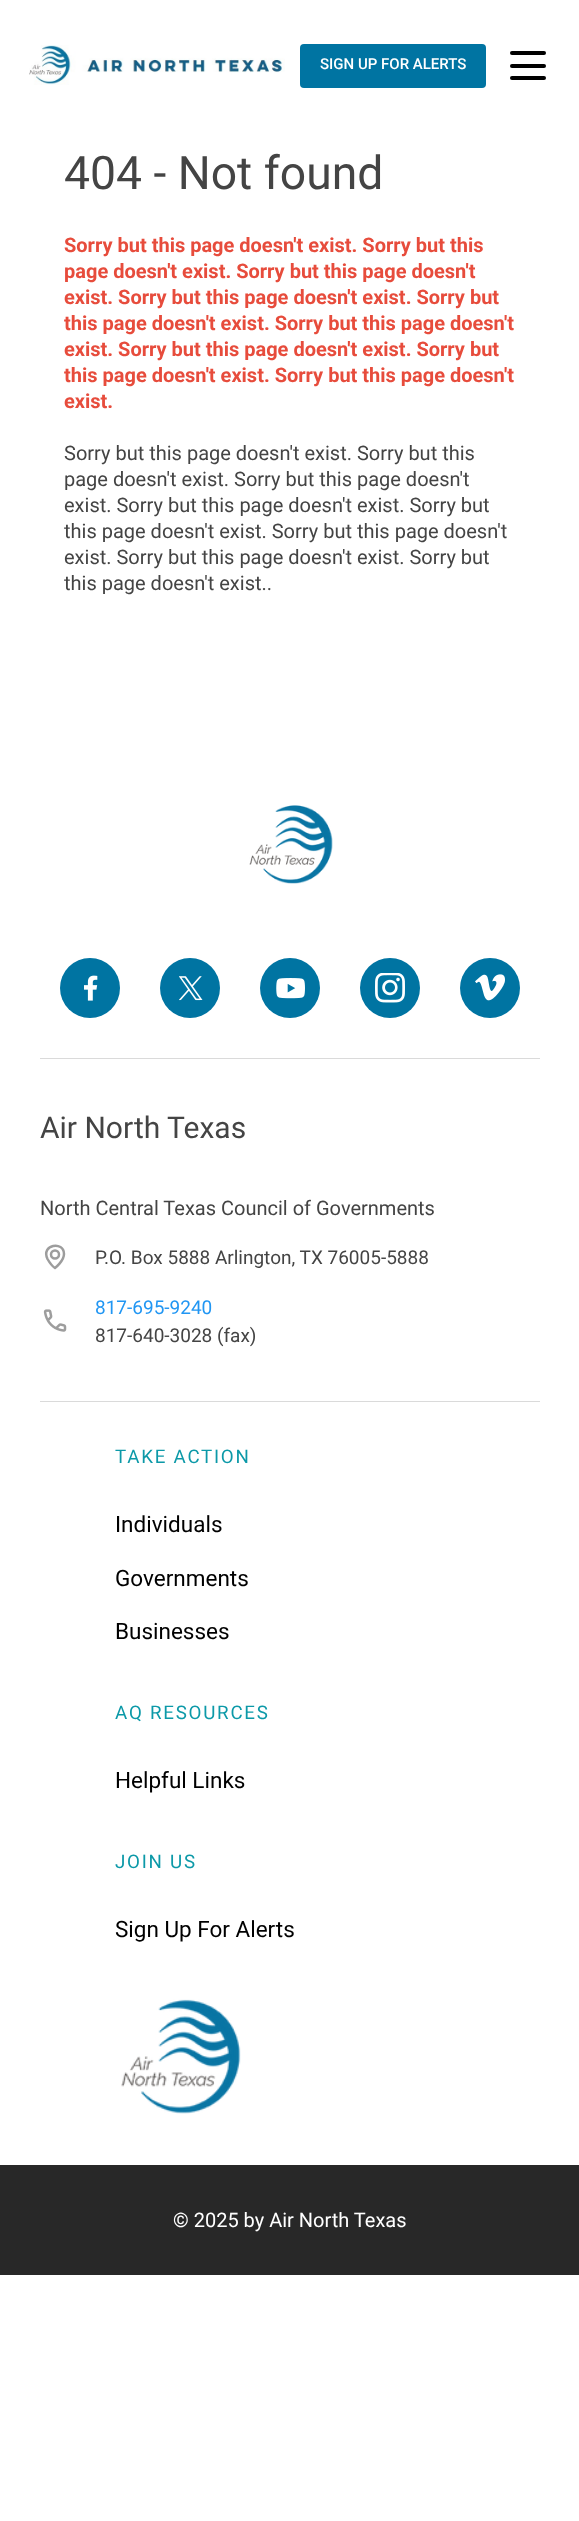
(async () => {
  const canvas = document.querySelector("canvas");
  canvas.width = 579;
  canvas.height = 2521;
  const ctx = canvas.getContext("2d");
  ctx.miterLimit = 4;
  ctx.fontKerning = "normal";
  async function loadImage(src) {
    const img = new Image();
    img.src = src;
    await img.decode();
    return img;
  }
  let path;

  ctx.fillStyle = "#ffffff";
  ctx.fillRect(0, 0, 579, 2521);
  ctx.drawImage(await loadImage("img/1.png"), 29, 45, 256, 40);
  ctx.fillStyle = "#0074a2";
  ctx.beginPath();
  ctx.roundRect(300, 44, 186, 44, 4);
  ctx.fill();
  ctx.fillStyle = "#000000";
  ctx.beginPath();
  ctx.roundRect(510, 51, 36, 4, 2);
  ctx.fill();
  ctx.beginPath();
  ctx.roundRect(510, 76, 36, 4, 2);
  ctx.fill();
  ctx.beginPath();
  ctx.roundRect(510, 64, 36, 4, 2);
  ctx.fill();
  ctx.drawImage(await loadImage("img/2.png"), 249, 805, 84, 79);
  ctx.fillStyle = "#0074a2";
  ctx.beginPath();
  ctx.arc(90, 988, 30, 0, Math.PI * 2);
  ctx.fill();
  ctx.drawImage(await loadImage("img/3.png"), 84, 975, 14, 26);
  ctx.beginPath();
  ctx.arc(190, 988, 30, 0, Math.PI * 2);
  ctx.fill();
  ctx.drawImage(await loadImage("img/4.png"), 179, 976, 24, 25);
  ctx.beginPath();
  ctx.arc(290, 988, 30, 0, Math.PI * 2);
  ctx.fill();
  ctx.drawImage(await loadImage("img/5.png"), 276, 978, 29, 21);
  ctx.beginPath();
  ctx.arc(390, 988, 30, 0, Math.PI * 2);
  ctx.fill();
  ctx.drawImage(await loadImage("img/6.png"), 375, 973, 30, 30);
  ctx.beginPath();
  ctx.arc(490, 988, 30, 0, Math.PI * 2);
  ctx.fill();
  ctx.drawImage(await loadImage("img/7.png"), 475, 974, 30, 27);
  ctx.fillStyle = "#dadada";
  ctx.fillRect(40, 1058, 500, 1);
  ctx.fillRect(40, 1401, 500, 1);
  ctx.beginPath();
  ctx.arc(55, 1254.5, 4, 0, Math.PI * 2);
  ctx.strokeStyle = "#9d9d9d";
  ctx.lineWidth = 2.5;
  ctx.stroke();
  path = new Path2D("M64 1254C64 1261 55 1268 55 1268C52 1266 49.5 1262.5 47.5 1259C40.5 1244.5 64 1240.5 64 1254Z");
  ctx.lineCap = "round";
  ctx.lineJoin = "round";
  ctx.stroke(path);
  ctx.drawImage(await loadImage("img/8.png"), 43, 1309, 24, 23);
  ctx.drawImage(await loadImage("img/9.png"), 121, 1999, 120, 115);
  ctx.fillStyle = "#282828";
  ctx.fillRect(0, 2165, 579, 110);
  ctx.font = "500 15px Roboto";
  ctx.fillStyle = "#ffffff";
  ctx.fillText("SIGN UP FOR ALERTS", 320, 69);
  ctx.font = "46.25px Roboto";
  ctx.fillStyle = "#444444";
  ctx.fillText("404 - Not found", 64, 189);
  ctx.font = "bold 20px Roboto";
  ctx.fillStyle = "#e74c3c";
  for (const [text, x, y] of [
    ["Sorry but this page doesn't exist. Sorry but this", 64, 252],
    ["page doesn't exist. Sorry but this page doesn't", 64, 278],
    ["exist. Sorry but this page doesn't exist. Sorry but", 64, 304],
    ["this page doesn't exist. Sorry but this page doesn't", 64, 330],
    ["exist. Sorry but this page doesn't exist. Sorry but", 64, 356],
    ["this page doesn't exist. Sorry but this page doesn't", 64, 382],
    ["exist.", 64, 408],
  ]) {
    ctx.fillText(text, x, y);
  }
  ctx.font = "20px Roboto";
  ctx.fillStyle = "#444444";
  for (const [text, x, y] of [
    ["Sorry but this page doesn't exist. Sorry but this", 64, 460],
    ["page doesn't exist. Sorry but this page doesn't", 64, 486],
    ["exist. Sorry but this page doesn't exist. Sorry but", 64, 512],
    ["this page doesn't exist. Sorry but this page doesn't", 64, 538],
    ["exist. Sorry but this page doesn't exist. Sorry but", 64, 564],
    ["this page doesn't exist..", 64, 590],
  ]) {
    ctx.fillText(text, x, y);
  }
  ctx.font = "30px Roboto";
  ctx.fillText("Air North Texas", 40, 1138);
  ctx.font = "20px Roboto";
  ctx.fillText("North Central Texas Council of Governments", 40, 1215);
  ctx.font = "19px Roboto";
  ctx.fillText("P.O. Box 5888 Arlington, TX 76005-5888", 95, 1264);
  ctx.fillStyle = "#2196f3";
  ctx.fillText("817-695-9240", 95, 1314);
  ctx.fillStyle = "#444444";
  ctx.fillText("817-640-3028 (fax)", 95, 1342);
  ctx.letterSpacing = "1.75px";
  ctx.font = "18.75px Roboto";
  ctx.fillStyle = "#0c99a8";
  ctx.fillText("TAKE ACTION", 115, 1463);
  ctx.letterSpacing = "0px";
  ctx.font = "22.5px Roboto";
  ctx.fillStyle = "#000000";
  for (const [text, x, y] of [
    ["Individuals", 115, 1532],
    ["Governments", 115, 1586],
    ["Businesses", 115, 1639],
  ]) {
    ctx.fillText(text, x, y);
  }
  ctx.letterSpacing = "1.75px";
  ctx.font = "18.75px Roboto";
  ctx.fillStyle = "#0c99a8";
  ctx.fillText("AQ RESOURCES", 115, 1719);
  ctx.letterSpacing = "0px";
  ctx.font = "22.5px Roboto";
  ctx.fillStyle = "#000000";
  ctx.fillText("Helpful Links", 115, 1788);
  ctx.letterSpacing = "1.75px";
  ctx.font = "18.75px Roboto";
  ctx.fillStyle = "#0c99a8";
  ctx.fillText("JOIN US", 115, 1868);
  ctx.letterSpacing = "0px";
  ctx.font = "22.5px Roboto";
  ctx.fillStyle = "#000000";
  ctx.fillText("Sign Up For Alerts", 115, 1937);
  ctx.font = "20px Roboto";
  ctx.fillStyle = "#ffffff";
  ctx.fillText("© 2025 by Air North Texas", 173, 2227);
})();
